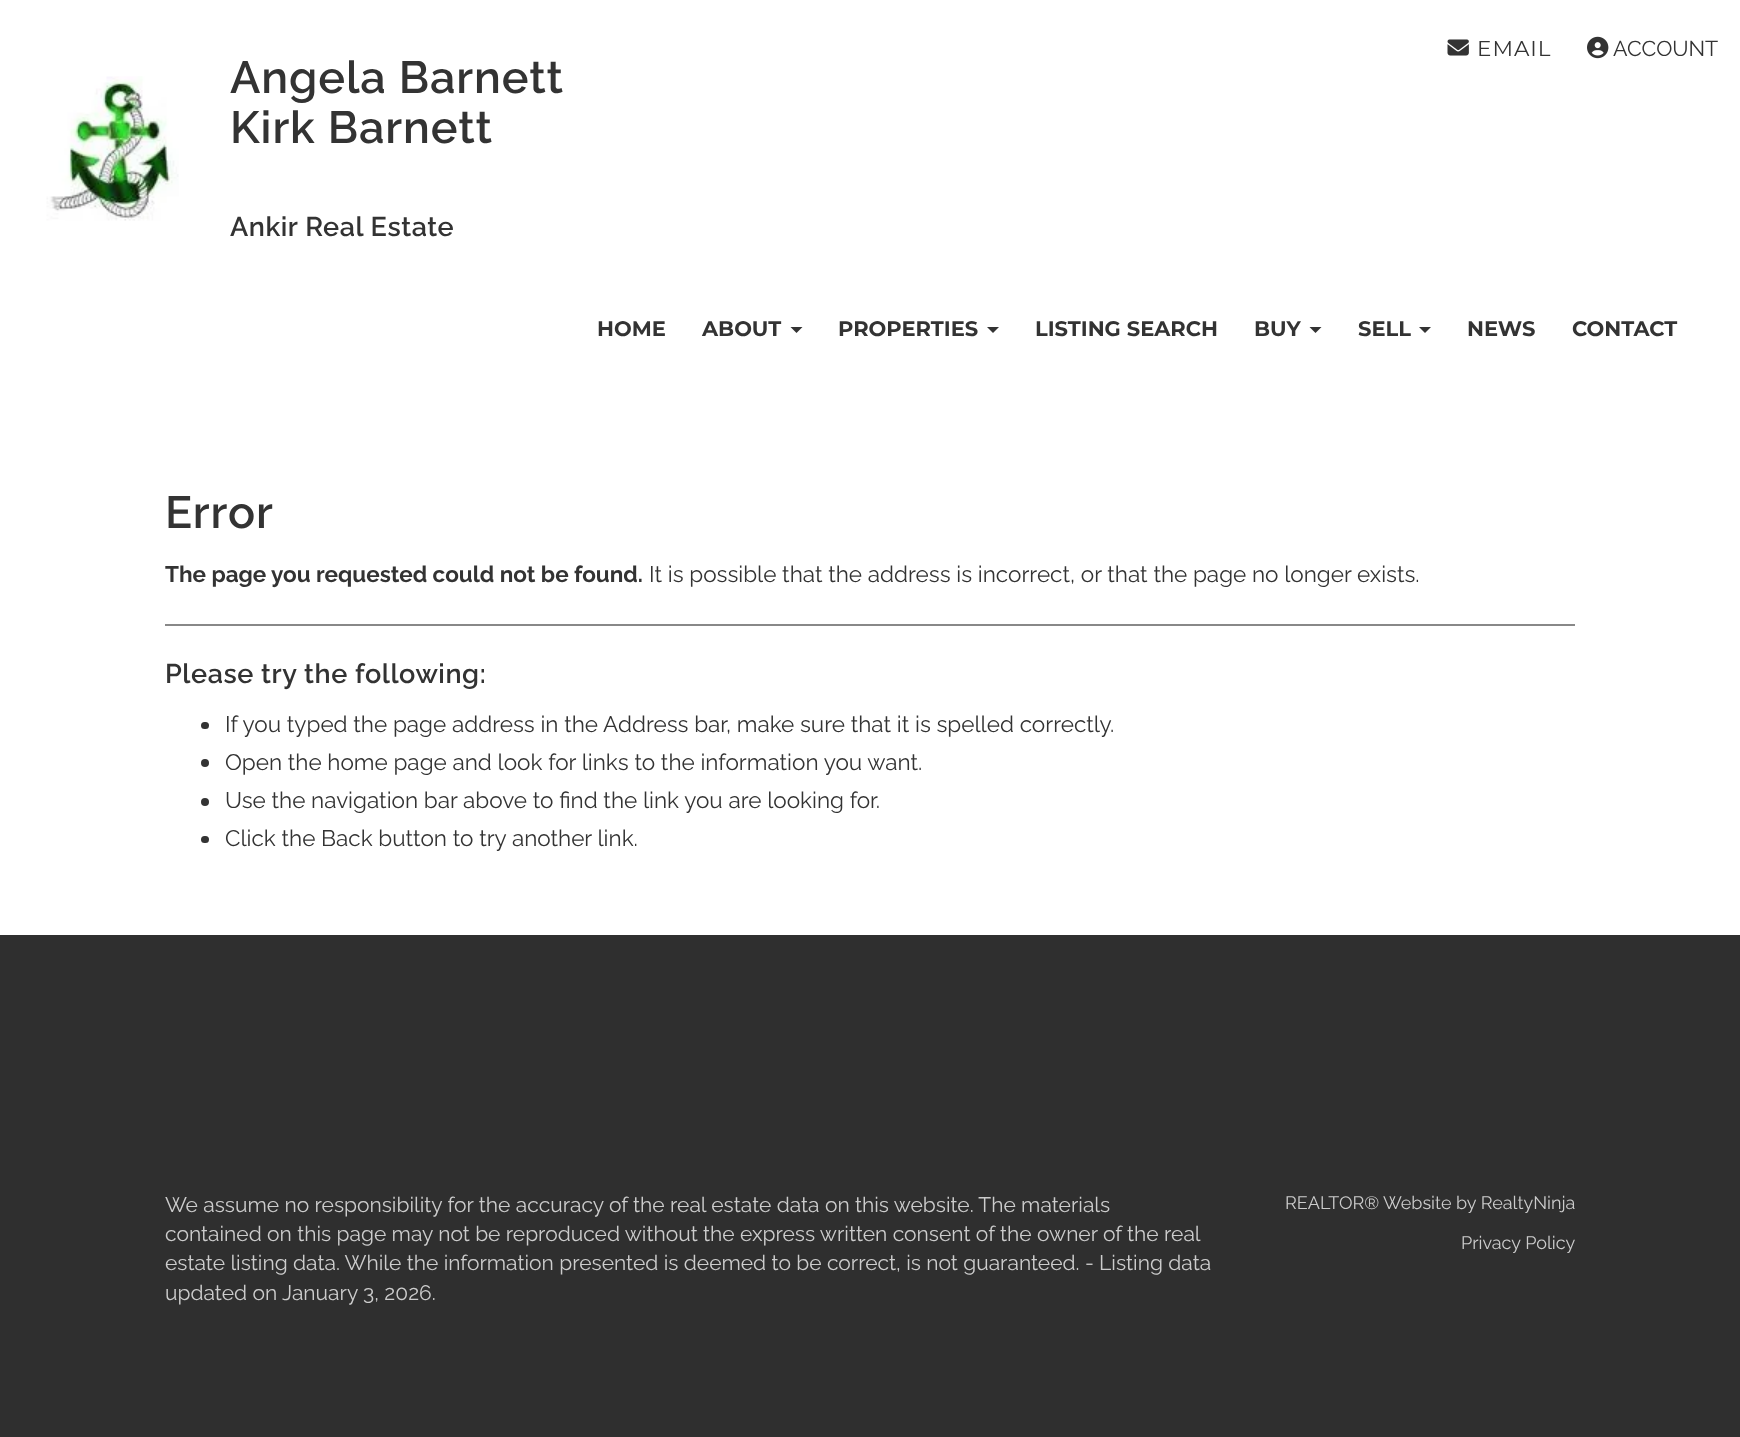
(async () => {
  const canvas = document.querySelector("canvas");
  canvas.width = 1740;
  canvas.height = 1437;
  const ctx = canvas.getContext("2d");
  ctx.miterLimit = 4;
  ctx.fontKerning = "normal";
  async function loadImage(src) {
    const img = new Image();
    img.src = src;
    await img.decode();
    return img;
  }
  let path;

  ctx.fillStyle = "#ffffff";
  ctx.fillRect(0, 0, 1740, 1437);
  ctx.drawImage(await loadImage("img/1.png"), 1447, 39, 22, 17);
  ctx.drawImage(await loadImage("img/2.png"), 1587, 36, 22, 23);
  ctx.drawImage(await loadImage("img/3.png"), 46, 76, 133, 145);
  ctx.fillStyle = "#333333";
  path = new Path2D("M790.5 327H802.5L796.5 333Z");
  ctx.fill(path);
  path = new Path2D("M987 327H999L993 333Z");
  ctx.fill(path);
  path = new Path2D("M1309.5 327H1321.5L1315.5 333Z");
  ctx.fill(path);
  path = new Path2D("M1419 327H1431L1425 333Z");
  ctx.fill(path);
  ctx.fillStyle = "#888888";
  ctx.fillRect(165, 624, 1410, 2);
  ctx.fillStyle = "#333333";
  ctx.beginPath();
  ctx.roundRect(201, 722, 8, 7, 3.5);
  ctx.fill();
  ctx.beginPath();
  ctx.arc(205, 763, 4, 0, Math.PI * 2);
  ctx.fill();
  ctx.beginPath();
  ctx.arc(205, 802, 4, 0, Math.PI * 2);
  ctx.fill();
  ctx.beginPath();
  ctx.roundRect(201, 836, 8, 7, 3.5);
  ctx.fill();
  ctx.fillStyle = "#2f2f2f";
  ctx.fillRect(0, 935, 1740, 502);
  ctx.letterSpacing = "1px";
  ctx.font = "21.5px Montserrat";
  ctx.fillStyle = "#333333";
  ctx.fillText("EMAIL", 1477, 56);
  ctx.letterSpacing = "0px";
  ctx.font = "21.5px Raleway";
  ctx.fillText("ACCOUNT", 1613, 56);
  ctx.letterSpacing = "0.9px";
  ctx.font = "600 45px Raleway";
  ctx.fillText("Angela Barnett", 230, 93);
  ctx.fillText("Kirk Barnett", 230, 143);
  ctx.letterSpacing = "0.55px";
  ctx.font = "600 27px Raleway";
  ctx.fillText("Ankir Real Estate", 230, 236);
  ctx.letterSpacing = "0px";
  ctx.font = "bold 21px Montserrat";
  for (const [text, x, y] of [
    ["HOME", 597, 336],
    ["ABOUT", 702, 336],
    ["PROPERTIES", 838, 336],
    ["LISTING SEARCH", 1035, 336],
    ["BUY", 1254, 336],
    ["SELL", 1358, 336],
    ["NEWS", 1467, 336],
    ["CONTACT", 1572, 336],
  ]) {
    ctx.fillText(text, x, y);
  }
  ctx.letterSpacing = "0.9px";
  ctx.font = "600 45px Raleway";
  ctx.fillText("Error", 165, 528);
  ctx.letterSpacing = "0px";
  ctx.font = "bold 22.5px Raleway";
  ctx.fillText("The page you requested could not be found.", 165, 582);
  ctx.font = "22.5px Raleway";
  ctx.fillText("It is possible that the address is incorrect, or that the page no longer exists.", 649, 582);
  ctx.letterSpacing = "0.55px";
  ctx.font = "600 27px Raleway";
  ctx.fillText("Please try the following:", 165, 683);
  ctx.letterSpacing = "0px";
  ctx.font = "22.5px Raleway";
  for (const [text, x, y] of [
    ["If you typed the page address in the Address bar, make sure that it is spelled correctly.", 225, 732],
    ["Open the home page and look for links to the information you want.", 225, 770],
    ["Use the navigation bar above to find the link you are looking for.", 225, 808],
    ["Click the Back button to try another link.", 225, 846],
  ]) {
    ctx.fillText(text, x, y);
  }
  ctx.font = "21px Raleway";
  ctx.fillStyle = "#cccccc";
  for (const [text, x, y] of [
    ["We assume no responsibility for the accuracy of the real estate data on this website. The materials", 165, 1212],
    ["contained on this page may not be reproduced without the express written consent of the owner of the real", 165, 1241],
    ["estate listing data. While the information presented is deemed to be correct, is not guaranteed. - Listing data", 165, 1270],
    ["updated on January 3, 2026.", 165, 1300],
  ]) {
    ctx.fillText(text, x, y);
  }
  ctx.font = "18px Raleway";
  ctx.fillText("REALTOR® Website by RealtyNinja", 1285, 1209);
  ctx.fillText("Privacy Policy", 1461, 1249);
})();
